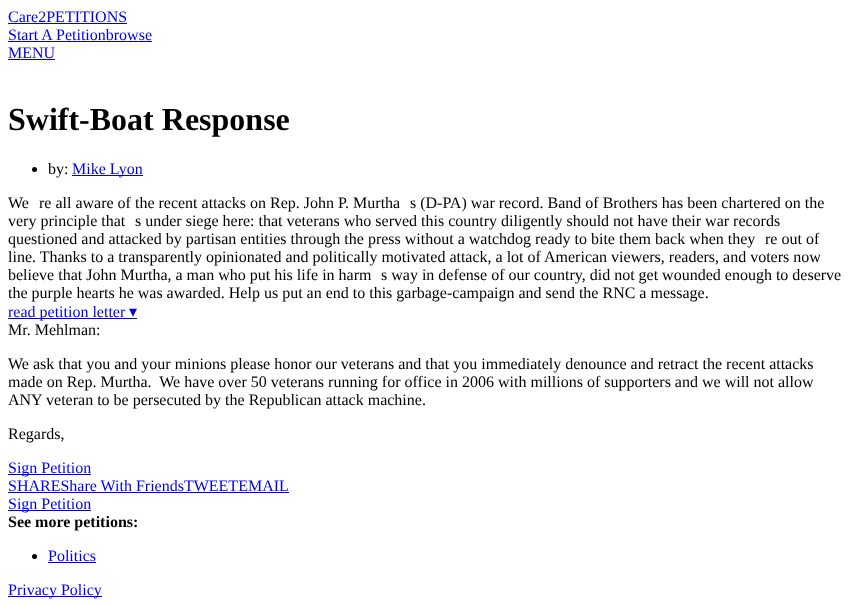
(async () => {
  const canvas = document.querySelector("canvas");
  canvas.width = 854;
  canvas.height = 606;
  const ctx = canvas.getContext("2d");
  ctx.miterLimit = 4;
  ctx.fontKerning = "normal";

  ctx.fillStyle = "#ffffff";
  ctx.fillRect(0, 0, 854, 606);
  for (const [x, y, w, h, color] of [
    [8, 23, 119, 1, "#0000ee"],
    [8, 41, 144, 1, "#0000ee"],
    [8, 59, 47, 1, "#0000ee"],
  ]) {
    ctx.fillStyle = color;
    ctx.fillRect(x, y, w, h);
  }
  ctx.fillStyle = "#000000";
  ctx.beginPath();
  ctx.arc(34.5, 169.5, 2.5, 0, Math.PI * 2);
  ctx.fill();
  for (const [x, y, w, h, color] of [
    [72, 175, 71, 1, "#0000ee"],
    [8, 318, 129, 1, "#0000ee"],
    [8, 474, 83, 1, "#0000ee"],
    [8, 492, 281, 1, "#0000ee"],
    [8, 510, 83, 1, "#0000ee"],
  ]) {
    ctx.fillStyle = color;
    ctx.fillRect(x, y, w, h);
  }
  ctx.fillStyle = "#000000";
  ctx.beginPath();
  ctx.arc(34.5, 556.5, 2.5, 0, Math.PI * 2);
  ctx.fill();
  ctx.fillStyle = "#0000ee";
  ctx.fillRect(48, 562, 48, 1);
  ctx.fillRect(8, 596, 94, 1);
  ctx.font = "16px Liberation Serif";
  for (const [text, x, y] of [
    ["Care2PETITIONS", 8, 22],
    ["Start A Petitionbrowse", 8, 40],
    ["MENU", 8, 58],
  ]) {
    ctx.fillText(text, x, y);
  }
  ctx.font = "bold 32px Liberation Serif";
  ctx.fillStyle = "#000000";
  ctx.fillText("Swift-Boat Response", 8, 130);
  ctx.font = "16px Liberation Serif";
  ctx.fillText("by:", 48, 174);
  ctx.fillStyle = "#0000ee";
  ctx.fillText("Mike Lyon", 72, 174);
  ctx.fillStyle = "#000000";
  for (const [text, x, y] of [
    ["We", 8, 208],
    ["re all aware of the recent attacks on Rep. John P. Murtha", 39, 208],
    ["s (D-PA) war record. Band of Brothers has been chartered on the", 410, 208],
    ["very principle that", 8, 226],
    ["s under siege here: that veterans who served this country diligently should not have their war records", 135, 226],
    ["questioned and attacked by partisan entities through the press without a watchdog ready to bite them back when they", 8, 244],
    ["re out of", 765, 244],
    ["line. Thanks to a transparently opinionated and politically motivated attack, a lot of American viewers, readers, and voters now", 8, 262],
    ["believe that John Murtha, a man who put his life in harm", 8, 280],
    ["s way in defense of our country, did not get wounded enough to deserve", 381, 280],
    ["the purple hearts he was awarded. Help us put an end to this garbage-campaign and send the RNC a message.", 8, 298],
  ]) {
    ctx.fillText(text, x, y);
  }
  ctx.fillStyle = "#0000ee";
  ctx.fillText("read petition letter", 8, 317);
  ctx.font = "16px DejaVu Sans";
  ctx.fillText("▾", 129, 317);
  ctx.font = "16px Liberation Serif";
  ctx.fillStyle = "#000000";
  for (const [text, x, y] of [
    ["Mr. Mehlman:", 8, 335],
    ["We ask that you and your minions please honor our veterans and that you immediately denounce and retract the recent attacks", 8, 369],
    ["made on Rep. Murtha.  We have over 50 veterans running for office in 2006 with millions of supporters and we will not allow", 8, 387],
    ["ANY veteran to be persecuted by the Republican attack machine.", 8, 405],
    ["Regards,", 8, 439],
  ]) {
    ctx.fillText(text, x, y);
  }
  ctx.fillStyle = "#0000ee";
  for (const [text, x, y] of [
    ["Sign Petition", 8, 473],
    ["SHAREShare With FriendsTWEETEMAIL", 8, 491],
    ["Sign Petition", 8, 509],
  ]) {
    ctx.fillText(text, x, y);
  }
  ctx.font = "bold 16px Liberation Serif";
  ctx.fillStyle = "#000000";
  ctx.fillText("See more petitions:", 8, 527);
  ctx.font = "16px Liberation Serif";
  ctx.fillStyle = "#0000ee";
  ctx.fillText("Politics", 48, 561);
  ctx.fillText("Privacy Policy", 8, 595);
})();
